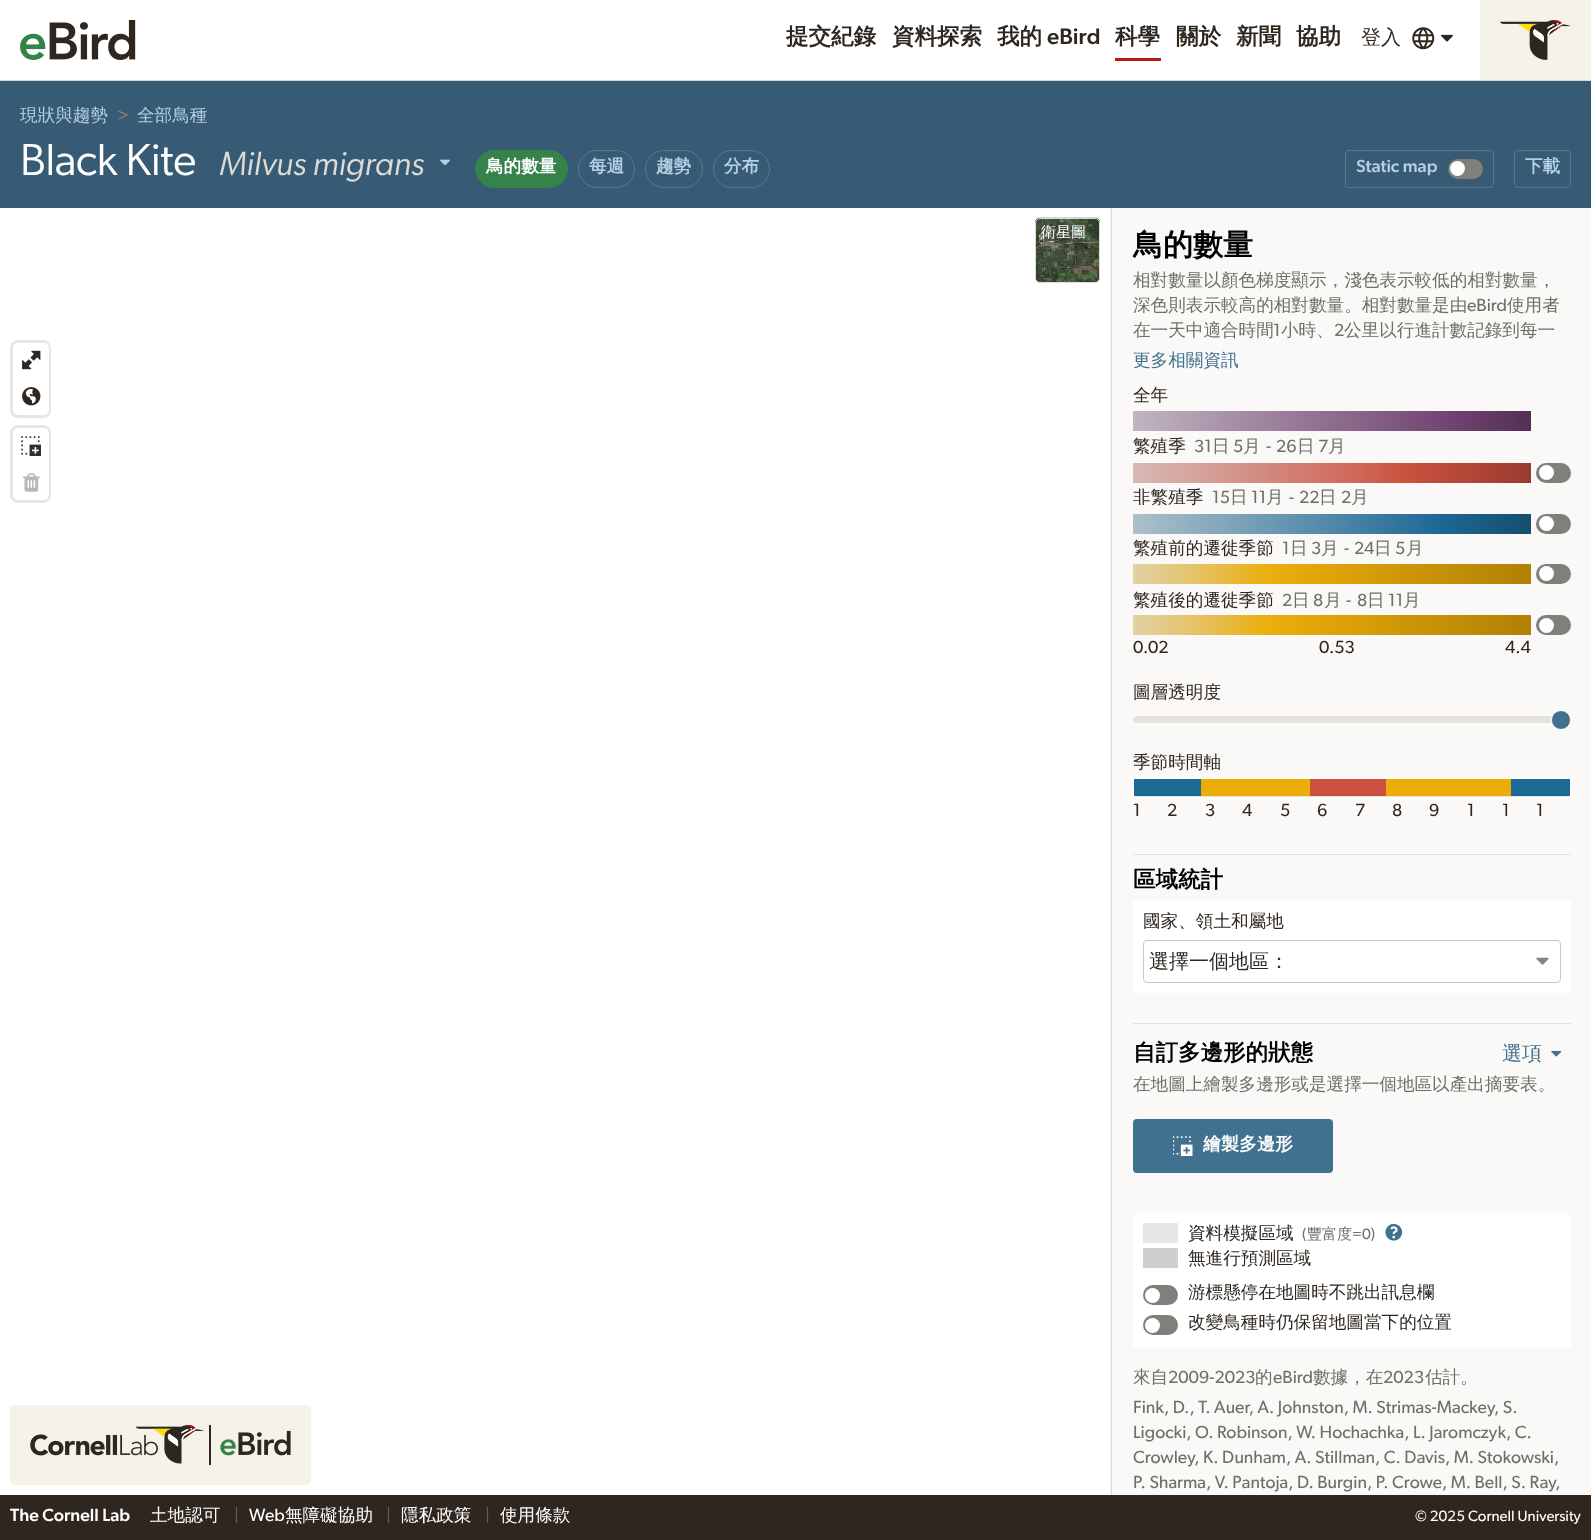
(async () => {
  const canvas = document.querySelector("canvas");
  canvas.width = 1591;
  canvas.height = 1540;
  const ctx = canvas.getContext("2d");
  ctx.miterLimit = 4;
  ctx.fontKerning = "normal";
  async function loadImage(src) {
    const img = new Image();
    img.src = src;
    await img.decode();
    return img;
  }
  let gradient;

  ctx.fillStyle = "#ffffff";
  ctx.fillRect(0, 0, 1591, 1540);
  ctx.fillStyle = "#dbdbd9";
  ctx.fillRect(0, 80, 1591, 1);
  ctx.drawImage(await loadImage("img/1.png"), 20, 20, 116, 40);
  ctx.fillStyle = "#b31b1b";
  ctx.fillRect(1115, 58, 46, 3);
  ctx.drawImage(await loadImage("img/2.png"), 1412, 27, 23, 23);
  ctx.drawImage(await loadImage("img/3.png"), 1441, 34, 12, 8);
  ctx.fillStyle = "#f5f3e9";
  ctx.fillRect(1480, 0, 111, 80);
  ctx.drawImage(await loadImage("img/4.png"), 1500, 20, 71, 40);
  ctx.fillStyle = "#385b75";
  ctx.fillRect(0, 81, 1591, 127);
  ctx.drawImage(await loadImage("img/5.png"), 440, 159, 10, 7);
  ctx.fillStyle = "#36824b";
  ctx.beginPath();
  ctx.roundRect(475.5, 150.5, 92, 37, 18.5);
  ctx.fill();
  ctx.strokeStyle = "#36824b";
  ctx.stroke();
  ctx.beginPath();
  ctx.roundRect(578.5, 150.5, 56, 37, 18.5);
  ctx.strokeStyle = "#577890";
  ctx.stroke();
  ctx.beginPath();
  ctx.roundRect(645.5, 150.5, 57, 37, 18.5);
  ctx.stroke();
  ctx.beginPath();
  ctx.roundRect(713.5, 150.5, 56, 37, 18.5);
  ctx.stroke();
  ctx.beginPath();
  ctx.roundRect(1345.5, 150.5, 148, 37, 3.5);
  ctx.stroke();
  ctx.fillStyle = "#817f79";
  ctx.beginPath();
  ctx.roundRect(1448, 159, 35, 20, 10);
  ctx.fill();
  ctx.fillStyle = "#ffffff";
  ctx.beginPath();
  ctx.arc(1457.5, 168.5, 7.5, 0, Math.PI * 2);
  ctx.fill();
  ctx.beginPath();
  ctx.roundRect(1514.5, 150.5, 56, 37, 3.5);
  ctx.stroke();
  ctx.fillStyle = "#f4f3f1";
  ctx.fillRect(1110, 208, 1, 1287);
  ctx.drawImage(await loadImage("img/6.png"), 1035, 217, 65, 66);
  ctx.beginPath();
  ctx.roundRect(1035.5, 218.5, 64, 64, 4.5);
  ctx.strokeStyle = "#dcdcd5";
  ctx.stroke();
  ctx.beginPath();
  ctx.roundRect(11.5, 341.5, 38, 75, 6.5);
  ctx.strokeStyle = "#e6e6e6";
  ctx.lineWidth = 3;
  ctx.stroke();
  ctx.fillStyle = "#ffffff";
  ctx.beginPath();
  ctx.roundRect(13, 343, 36, 72, 5);
  ctx.fill();
  ctx.drawImage(await loadImage("img/7.png"), 22, 350, 19, 20);
  ctx.drawImage(await loadImage("img/8.png"), 22, 387, 19, 19);
  ctx.beginPath();
  ctx.roundRect(11.5, 426.5, 38, 75, 6.5);
  ctx.stroke();
  ctx.beginPath();
  ctx.roundRect(13, 428, 36, 72, 5);
  ctx.fill();
  ctx.drawImage(await loadImage("img/9.png"), 21, 436, 20, 20);
  ctx.drawImage(await loadImage("img/10.png"), 23, 473, 17, 19);
  ctx.fillStyle = "#f5f3e9";
  ctx.beginPath();
  ctx.roundRect(10, 1405, 301, 80, 5);
  ctx.fill();
  ctx.drawImage(await loadImage("img/11.png"), 30, 1425, 261, 40);
  ctx.fillStyle = "#faf9f7";
  ctx.fillRect(1112, 208, 479, 1287);
  ctx.fillStyle = "#dcdbd8";
  ctx.fillRect(1111, 208, 1, 1287);
  gradient = ctx.createLinearGradient(1133, 421, 1531, 421);
  gradient.addColorStop(0, "#c1b5c1");
  gradient.addColorStop(0.11, "#b6a5b6");
  gradient.addColorStop(0.22, "#aa94aa");
  gradient.addColorStop(0.33, "#9f849f");
  gradient.addColorStop(0.44, "#947494");
  gradient.addColorStop(0.56, "#896589");
  gradient.addColorStop(0.67, "#7e557f");
  gradient.addColorStop(0.78, "#734674");
  gradient.addColorStop(0.89, "#643a65");
  gradient.addColorStop(1, "#533054");
  ctx.fillStyle = gradient;
  ctx.fillRect(1133, 411, 398, 20);
  gradient = ctx.createLinearGradient(1133, 473, 1531, 473);
  gradient.addColorStop(0, "#d8b9b5");
  gradient.addColorStop(0.11, "#d6aaa4");
  gradient.addColorStop(0.22, "#d49a92");
  gradient.addColorStop(0.33, "#d38a7f");
  gradient.addColorStop(0.44, "#d1796c");
  gradient.addColorStop(0.56, "#cf6758");
  gradient.addColorStop(0.67, "#cc5442");
  gradient.addColorStop(0.78, "#bd4a39");
  gradient.addColorStop(0.89, "#ab4334");
  gradient.addColorStop(1, "#993c2e");
  ctx.fillStyle = gradient;
  ctx.fillRect(1133, 463, 398, 20);
  ctx.fillStyle = "#817f79";
  ctx.beginPath();
  ctx.roundRect(1536, 463, 35, 20, 10);
  ctx.fill();
  ctx.fillStyle = "#ffffff";
  ctx.beginPath();
  ctx.arc(1546.5, 472.5, 7.5, 0, Math.PI * 2);
  ctx.fill();
  gradient = ctx.createLinearGradient(1133, 524, 1531, 524);
  gradient.addColorStop(0, "#adc0cb");
  gradient.addColorStop(0.11, "#98b3c3");
  gradient.addColorStop(0.22, "#84a7bb");
  gradient.addColorStop(0.33, "#6f9ab4");
  gradient.addColorStop(0.44, "#5a8eac");
  gradient.addColorStop(0.56, "#4581a4");
  gradient.addColorStop(0.67, "#30749d");
  gradient.addColorStop(0.78, "#1c6793");
  gradient.addColorStop(0.89, "#195a81");
  gradient.addColorStop(1, "#154e70");
  ctx.fillStyle = gradient;
  ctx.fillRect(1133, 514, 398, 20);
  ctx.fillStyle = "#817f79";
  ctx.beginPath();
  ctx.roundRect(1536, 514, 35, 20, 10);
  ctx.fill();
  ctx.fillStyle = "#ffffff";
  ctx.beginPath();
  ctx.arc(1546.5, 523.5, 7.5, 0, Math.PI * 2);
  ctx.fill();
  gradient = ctx.createLinearGradient(1133, 574, 1531, 574);
  gradient.addColorStop(0, "#e1d1a7");
  gradient.addColorStop(0.11, "#e4c77a");
  gradient.addColorStop(0.22, "#e8bc49");
  gradient.addColorStop(0.33, "#ecaf10");
  gradient.addColorStop(0.44, "#e4a608");
  gradient.addColorStop(0.56, "#da9f07");
  gradient.addColorStop(0.67, "#cf9707");
  gradient.addColorStop(0.78, "#c59007");
  gradient.addColorStop(0.89, "#bb8806");
  gradient.addColorStop(1, "#b18106");
  ctx.fillStyle = gradient;
  ctx.fillRect(1133, 564, 398, 20);
  ctx.fillStyle = "#817f79";
  ctx.beginPath();
  ctx.roundRect(1536, 564, 35, 20, 10);
  ctx.fill();
  ctx.fillStyle = "#ffffff";
  ctx.beginPath();
  ctx.arc(1546.5, 573.5, 7.5, 0, Math.PI * 2);
  ctx.fill();
  gradient = ctx.createLinearGradient(1133, 625, 1531, 625);
  gradient.addColorStop(0, "#e1d1a7");
  gradient.addColorStop(0.11, "#e4c77a");
  gradient.addColorStop(0.22, "#e8bc49");
  gradient.addColorStop(0.33, "#ecaf10");
  gradient.addColorStop(0.44, "#e4a608");
  gradient.addColorStop(0.56, "#da9f07");
  gradient.addColorStop(0.67, "#cf9707");
  gradient.addColorStop(0.78, "#c59007");
  gradient.addColorStop(0.89, "#bb8806");
  gradient.addColorStop(1, "#b18106");
  ctx.fillStyle = gradient;
  ctx.fillRect(1133, 615, 398, 20);
  ctx.fillStyle = "#817f79";
  ctx.beginPath();
  ctx.roundRect(1536, 615, 35, 20, 10);
  ctx.fill();
  ctx.fillStyle = "#ffffff";
  ctx.beginPath();
  ctx.arc(1546.5, 625.5, 7.5, 0, Math.PI * 2);
  ctx.fill();
  ctx.fillRect(1133, 716, 438, 7);
  ctx.fillStyle = "#e5e3dc";
  ctx.beginPath();
  ctx.roundRect(1133, 716, 438, 7, 3.5);
  ctx.fill();
  ctx.fillStyle = "#40718f";
  ctx.beginPath();
  ctx.arc(1561, 720, 9.5, 0, Math.PI * 2);
  ctx.fill();
  ctx.strokeStyle = "#ffffff";
  ctx.lineWidth = 1;
  ctx.stroke();
  ctx.fillStyle = "#e5e3dc";
  ctx.fillRect(1134, 796, 436, 1);
  ctx.strokeRect(1133.5, 778.5, 437, 19);
  for (const [x, y, w, h, color] of [
    [1134, 779, 67, 17, "#1d6996"],
    [1201, 779, 109, 17, "#edad08"],
    [1310, 779, 76, 17, "#cc503e"],
    [1386, 779, 125, 17, "#edad08"],
    [1511, 779, 59, 17, "#1d6996"],
    [1133, 854, 438, 1, "#e5e3dc"],
  ]) {
    ctx.fillStyle = color;
    ctx.fillRect(x, y, w, h);
  }
  ctx.fillStyle = "#ffffff";
  ctx.beginPath();
  ctx.roundRect(1133, 900, 438, 93, 4);
  ctx.fill();
  ctx.drawImage(await loadImage("img/12.png"), 1536, 957, 13, 8);
  ctx.beginPath();
  ctx.roundRect(1143.5, 940.5, 417, 42, 3.5);
  ctx.strokeStyle = "#c8c7c0";
  ctx.stroke();
  ctx.fillStyle = "#e5e3dc";
  ctx.fillRect(1133, 1023, 438, 1);
  ctx.drawImage(await loadImage("img/13.png"), 1551, 1050, 11, 7);
  ctx.fillStyle = "#40718f";
  ctx.beginPath();
  ctx.roundRect(1133, 1119, 200, 54, 4);
  ctx.fill();
  ctx.drawImage(await loadImage("img/14.png"), 1173, 1136, 20, 20);
  ctx.fillStyle = "#ffffff";
  ctx.beginPath();
  ctx.roundRect(1133, 1213, 438, 135, 4);
  ctx.fill();
  ctx.fillStyle = "#e6e6e6";
  ctx.fillRect(1143, 1223, 35, 20);
  ctx.drawImage(await loadImage("img/15.png"), 1385, 1223, 18, 18);
  ctx.fillStyle = "#cfcfcf";
  ctx.fillRect(1143, 1248, 35, 20);
  ctx.fillStyle = "#817f79";
  ctx.beginPath();
  ctx.roundRect(1143, 1285, 35, 20, 10);
  ctx.fill();
  ctx.fillStyle = "#ffffff";
  ctx.beginPath();
  ctx.arc(1152.5, 1295.5, 7.5, 0, Math.PI * 2);
  ctx.fill();
  ctx.fillStyle = "#817f79";
  ctx.beginPath();
  ctx.roundRect(1143, 1315, 35, 20, 10);
  ctx.fill();
  ctx.fillStyle = "#ffffff";
  ctx.beginPath();
  ctx.arc(1152.5, 1325.5, 7.5, 0, Math.PI * 2);
  ctx.fill();
  ctx.fillStyle = "#2e261f";
  ctx.fillRect(0, 1495, 1591, 45);
  ctx.font = "bold 22.5px WenQuanYi Zen Hei";
  for (const [text, x, y] of [
    ["提交紀錄", 786, 44],
    ["資料探索", 892, 44],
    ["我的", 997, 44],
  ]) {
    ctx.fillText(text, x, y);
  }
  ctx.font = "500 22.5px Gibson";
  ctx.fillText("eBird", 1047, 44);
  ctx.font = "bold 22.5px WenQuanYi Zen Hei";
  for (const [text, x, y] of [
    ["科學", 1115, 44],
    ["關於", 1176, 44],
    ["新聞", 1236, 44],
    ["協助", 1296, 44],
  ]) {
    ctx.fillText(text, x, y);
  }
  ctx.font = "500 20px WenQuanYi Zen Hei";
  ctx.fillText("登入", 1361, 44);
  ctx.font = "500 17.6px WenQuanYi Zen Hei";
  ctx.fillStyle = "#b4cfe1";
  ctx.fillText("現狀與趨勢", 20, 121);
  ctx.font = "17.6px Gibson";
  ctx.fillStyle = "#817f79";
  ctx.fillText(">", 117, 121);
  ctx.font = "500 17.6px WenQuanYi Zen Hei";
  ctx.fillStyle = "#b4cfe1";
  ctx.fillText("全部鳥種", 137, 121);
  ctx.letterSpacing = "-0.5px";
  ctx.font = "45px 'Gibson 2'";
  ctx.fillStyle = "#ffffff";
  ctx.fillText("Black Kite", 20, 175);
  ctx.letterSpacing = "0px";
  ctx.font = "italic 33.75px Gibson";
  ctx.fillStyle = "#dcdcd5";
  ctx.fillText("Milvus migrans", 219, 175);
  ctx.font = "bold 17.6px WenQuanYi Zen Hei";
  ctx.fillStyle = "#ffffff";
  ctx.fillText("鳥的數量", 486, 172);
  ctx.fillStyle = "#b4cfe1";
  for (const [text, x, y] of [
    ["每週", 589, 172],
    ["趨勢", 656, 172],
    ["分布", 724, 172],
  ]) {
    ctx.fillText(text, x, y);
  }
  ctx.font = "500 17.6px Gibson";
  ctx.fillText("Static map", 1356, 172);
  ctx.font = "bold 17.6px WenQuanYi Zen Hei";
  ctx.fillText("下載", 1525, 172);
  ctx.font = "500 15px WenQuanYi Zen Hei";
  ctx.fillStyle = "#ffffff";
  ctx.fillText("衛星圖", 1041, 237);
  ctx.font = "bold 30px WenQuanYi Zen Hei";
  ctx.fillStyle = "#000000";
  ctx.fillText("鳥的數量", 1133, 255);
  ctx.font = "500 17.6px WenQuanYi Zen Hei";
  ctx.fillStyle = "#6f6e67";
  ctx.fillText("相對數量以顏色梯度顯示，淺色表示較低的相對數量，", 1133, 286);
  ctx.fillText("深色則表示較高的相對數量。相對數量是由", 1133, 311);
  ctx.font = "17.6px Gibson";
  ctx.fillText("eBird", 1467, 311);
  ctx.font = "500 17.6px WenQuanYi Zen Hei";
  ctx.fillText("使用者", 1507, 311);
  ctx.fillText("在一天中適合時間", 1133, 336);
  ctx.font = "17.6px Gibson";
  ctx.fillText("1", 1273, 336);
  ctx.font = "500 17.6px WenQuanYi Zen Hei";
  ctx.fillText("小時、", 1281, 336);
  ctx.font = "17.6px Gibson";
  ctx.fillText("2", 1334, 336);
  ctx.font = "500 17.6px WenQuanYi Zen Hei";
  ctx.fillText("公里以行進計數記錄到每一", 1344, 336);
  ctx.fillStyle = "#40718f";
  ctx.fillText("更多相關資訊", 1133, 366);
  ctx.fillStyle = "#2e261f";
  ctx.fillText("全年", 1133, 401);
  ctx.fillText("繁殖季", 1133, 452);
  ctx.font = "17.6px Gibson";
  ctx.fillStyle = "#6f6e67";
  ctx.fillText("31", 1194, 452);
  ctx.font = "500 17.6px WenQuanYi Zen Hei";
  ctx.fillText("日", 1212, 452);
  ctx.font = "17.6px Gibson";
  ctx.fillText("5", 1233, 452);
  ctx.font = "500 17.6px WenQuanYi Zen Hei";
  ctx.fillText("月", 1243, 452);
  ctx.font = "17.6px Gibson";
  ctx.fillText("-", 1266, 452);
  ctx.fillText("26", 1276, 452);
  ctx.font = "500 17.6px WenQuanYi Zen Hei";
  ctx.fillText("日", 1297, 452);
  ctx.font = "17.6px Gibson";
  ctx.fillText("7", 1318, 452);
  ctx.font = "500 17.6px WenQuanYi Zen Hei";
  ctx.fillText("月", 1328, 452);
  ctx.fillStyle = "#2e261f";
  ctx.fillText("非繁殖季", 1133, 503);
  ctx.font = "17.6px Gibson";
  ctx.fillStyle = "#6f6e67";
  ctx.fillText("15", 1212, 503);
  ctx.font = "500 17.6px WenQuanYi Zen Hei";
  ctx.fillText("日", 1230, 503);
  ctx.font = "17.6px Gibson";
  ctx.fillText("11", 1251, 503);
  ctx.font = "500 17.6px WenQuanYi Zen Hei";
  ctx.fillText("月", 1266, 503);
  ctx.font = "17.6px Gibson";
  ctx.fillText("-", 1289, 503);
  ctx.fillText("22", 1299, 503);
  ctx.font = "500 17.6px WenQuanYi Zen Hei";
  ctx.fillText("日", 1319, 503);
  ctx.font = "17.6px Gibson";
  ctx.fillText("2", 1341, 503);
  ctx.font = "500 17.6px WenQuanYi Zen Hei";
  ctx.fillText("月", 1351, 503);
  ctx.fillStyle = "#2e261f";
  ctx.fillText("繁殖前的遷徙季節", 1133, 554);
  ctx.font = "17.6px Gibson";
  ctx.fillStyle = "#6f6e67";
  ctx.fillText("1", 1282, 554);
  ctx.font = "500 17.6px WenQuanYi Zen Hei";
  ctx.fillText("日", 1290, 554);
  ctx.font = "17.6px Gibson";
  ctx.fillText("3", 1311, 554);
  ctx.font = "500 17.6px WenQuanYi Zen Hei";
  ctx.fillText("月", 1321, 554);
  ctx.font = "17.6px Gibson";
  ctx.fillText("-", 1344, 554);
  ctx.fillText("24", 1354, 554);
  ctx.font = "500 17.6px WenQuanYi Zen Hei";
  ctx.fillText("日", 1374, 554);
  ctx.font = "17.6px Gibson";
  ctx.fillText("5", 1395, 554);
  ctx.font = "500 17.6px WenQuanYi Zen Hei";
  ctx.fillText("月", 1406, 554);
  ctx.fillStyle = "#2e261f";
  ctx.fillText("繁殖後的遷徙季節", 1133, 606);
  ctx.font = "17.6px Gibson";
  ctx.fillStyle = "#6f6e67";
  ctx.fillText("2", 1282, 606);
  ctx.font = "500 17.6px WenQuanYi Zen Hei";
  ctx.fillText("日", 1292, 606);
  ctx.font = "17.6px Gibson";
  ctx.fillText("8", 1313, 606);
  ctx.font = "500 17.6px WenQuanYi Zen Hei";
  ctx.fillText("月", 1324, 606);
  ctx.font = "17.6px Gibson";
  ctx.fillText("-", 1346, 606);
  ctx.fillText("8", 1357, 606);
  ctx.font = "500 17.6px WenQuanYi Zen Hei";
  ctx.fillText("日", 1367, 606);
  ctx.font = "17.6px Gibson";
  ctx.fillText("11", 1388, 606);
  ctx.font = "500 17.6px WenQuanYi Zen Hei";
  ctx.fillText("月", 1403, 606);
  ctx.font = "17.6px Gibson";
  ctx.fillStyle = "#2e261f";
  for (const [text, x, y] of [
    ["0.02", 1133, 653],
    ["0.53", 1319, 653],
    ["4.4", 1505, 653],
  ]) {
    ctx.fillText(text, x, y);
  }
  ctx.font = "500 17.6px WenQuanYi Zen Hei";
  ctx.fillText("圖層透明度", 1133, 698);
  ctx.fillText("季節時間軸", 1133, 768);
  ctx.font = "17.6px Gibson";
  for (const [text, x, y] of [
    ["1", 1133, 816],
    ["2", 1167, 816],
    ["3", 1205, 816],
    ["4", 1242, 816],
    ["5", 1280, 816],
    ["6", 1317, 816],
    ["7", 1355, 816],
    ["8", 1392, 816],
    ["9", 1429, 816],
    ["1", 1467, 816],
    ["1", 1502, 816],
    ["1", 1536, 816],
  ]) {
    ctx.fillText(text, x, y);
  }
  ctx.font = "bold 22.5px WenQuanYi Zen Hei";
  ctx.fillStyle = "#000000";
  ctx.fillText("區域統計", 1133, 887);
  ctx.font = "500 17.6px WenQuanYi Zen Hei";
  ctx.fillStyle = "#2e261f";
  ctx.fillText("國家、領土和屬地", 1143, 927);
  ctx.font = "500 20px WenQuanYi Zen Hei";
  ctx.fillText("選擇一個地區：", 1149, 968);
  ctx.font = "bold 22.5px WenQuanYi Zen Hei";
  ctx.fillStyle = "#000000";
  ctx.fillText("自訂多邊形的狀態", 1133, 1060);
  ctx.font = "500 20px WenQuanYi Zen Hei";
  ctx.fillStyle = "#40718f";
  ctx.fillText("選項", 1502, 1060);
  ctx.font = "500 17.6px WenQuanYi Zen Hei";
  ctx.fillStyle = "#6f6e67";
  ctx.fillText("在地圖上繪製多邊形或是選擇一個地區以產出摘要表。", 1133, 1090);
  ctx.font = "bold 18px WenQuanYi Zen Hei";
  ctx.fillStyle = "#ffffff";
  ctx.fillText("繪製多邊形", 1203, 1150);
  ctx.font = "500 17.6px WenQuanYi Zen Hei";
  ctx.fillStyle = "#2e261f";
  ctx.fillText("資料模擬區域", 1188, 1239);
  ctx.font = "15px Gibson";
  ctx.fillStyle = "#6f6e67";
  ctx.fillText("(", 1302, 1239);
  ctx.font = "500 15px WenQuanYi Zen Hei";
  ctx.fillText("豐富度", 1307, 1239);
  ctx.font = "15px Gibson";
  ctx.fillText("=0)", 1352, 1239);
  ctx.font = "500 17.6px WenQuanYi Zen Hei";
  ctx.fillStyle = "#2e261f";
  for (const [text, x, y] of [
    ["無進行預測區域", 1188, 1264],
    ["游標懸停在地圖時不跳出訊息欄", 1188, 1298],
    ["改變鳥種時仍保留地圖當下的位置", 1188, 1328],
  ]) {
    ctx.fillText(text, x, y);
  }
  ctx.fillStyle = "#6f6e67";
  ctx.fillText("來自", 1133, 1383);
  ctx.font = "17.6px Gibson";
  ctx.fillText("2009-2023", 1168, 1383);
  ctx.font = "500 17.6px WenQuanYi Zen Hei";
  ctx.fillText("的", 1255, 1383);
  ctx.font = "17.6px Gibson";
  ctx.fillText("eBird", 1273, 1383);
  ctx.font = "500 17.6px WenQuanYi Zen Hei";
  ctx.fillText("數據，在", 1313, 1383);
  ctx.font = "17.6px Gibson";
  ctx.fillText("2023", 1383, 1383);
  ctx.font = "500 17.6px WenQuanYi Zen Hei";
  ctx.fillText("估計。", 1425, 1383);
  ctx.font = "17.6px Gibson";
  for (const [text, x, y] of [
    ["Fink, D., T. Auer, A. Johnston, M. Strimas-Mackey, S.", 1133, 1413],
    ["Ligocki, O. Robinson, W. Hochachka, L. Jaromczyk, C.", 1133, 1438],
    ["Crowley, K. Dunham, A. Stillman, C. Davis, M. Stokowski,", 1133, 1463],
    ["P. Sharma, V. Pantoja, D. Burgin, P. Crowe, M. Bell, S. Ray,", 1133, 1488],
  ]) {
    ctx.fillText(text, x, y);
  }
  ctx.font = "500 17.6px Gibson";
  ctx.fillStyle = "#ffffff";
  ctx.fillText("The Cornell Lab", 10, 1521);
  ctx.font = "500 17.6px WenQuanYi Zen Hei";
  ctx.fillText("土地認可", 150, 1521);
  ctx.font = "17.6px Gibson";
  ctx.fillStyle = "#625c57";
  ctx.fillText("|", 234, 1521);
  ctx.fillStyle = "#ffffff";
  ctx.fillText("Web", 249, 1521);
  ctx.font = "500 17.6px WenQuanYi Zen Hei";
  ctx.fillText("無障礙協助", 285, 1521);
  ctx.font = "17.6px Gibson";
  ctx.fillStyle = "#625c57";
  ctx.fillText("|", 386, 1521);
  ctx.font = "500 17.6px WenQuanYi Zen Hei";
  ctx.fillStyle = "#ffffff";
  ctx.fillText("隱私政策", 401, 1521);
  ctx.font = "17.6px Gibson";
  ctx.fillStyle = "#625c57";
  ctx.fillText("|", 485, 1521);
  ctx.font = "500 17.6px WenQuanYi Zen Hei";
  ctx.fillStyle = "#ffffff";
  ctx.fillText("使用條款", 500, 1521);
  ctx.font = "15px Gibson";
  ctx.fillText("© 2025 Cornell University", 1415, 1521);
})();
